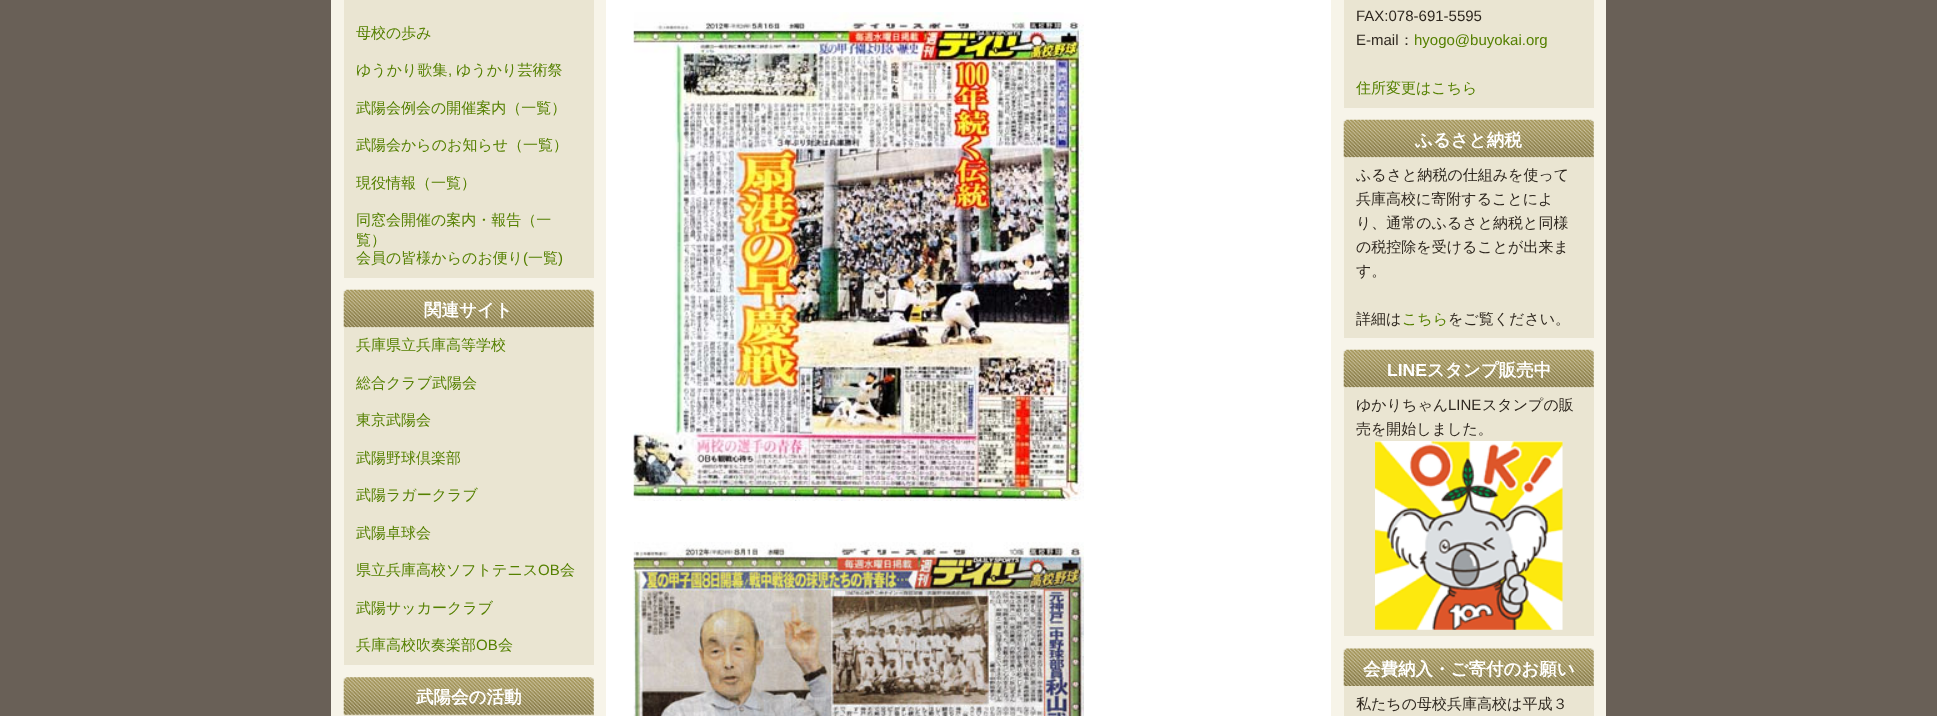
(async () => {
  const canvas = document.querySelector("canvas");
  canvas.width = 1937;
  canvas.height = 716;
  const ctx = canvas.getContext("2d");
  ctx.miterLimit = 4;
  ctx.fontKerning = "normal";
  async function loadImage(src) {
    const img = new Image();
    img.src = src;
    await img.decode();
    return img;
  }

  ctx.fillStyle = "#696057";
  ctx.fillRect(0, 0, 1937, 716);
  ctx.fillStyle = "#f7f4e9";
  ctx.fillRect(331, 0, 1275, 716);
  ctx.fillStyle = "#eae5d2";
  ctx.fillRect(344, 0, 250, 278);
  ctx.drawImage(await loadImage("img/1.png"), 343, 289, 251, 39);
  ctx.fillRect(344, 328, 250, 337);
  ctx.drawImage(await loadImage("img/2.png"), 343, 677, 251, 38);
  ctx.fillRect(344, 715, 250, 1);
  ctx.fillStyle = "#ffffff";
  ctx.fillRect(606, 0, 725, 716);
  ctx.drawImage(await loadImage("img/3.png"), 633, 12, 451, 489);
  ctx.drawImage(await loadImage("img/4.png"), 633, 542, 451, 174);
  ctx.fillStyle = "#eae5d2";
  ctx.fillRect(1344, 0, 250, 108);
  ctx.drawImage(await loadImage("img/5.png"), 1343, 119, 251, 39);
  ctx.fillRect(1344, 158, 250, 180);
  ctx.drawImage(await loadImage("img/5.png"), 1343, 349, 251, 39);
  ctx.fillRect(1344, 388, 250, 248);
  ctx.drawImage(await loadImage("img/6.png"), 1375, 441, 188, 189);
  ctx.drawImage(await loadImage("img/7.png"), 1343, 648, 251, 38);
  ctx.fillRect(1344, 686, 250, 30);
  ctx.font = "500 15px WenQuanYi Zen Hei";
  ctx.fillStyle = "#558000";
  ctx.fillText("母校の歩み", 356, 38);
  ctx.fillText("ゆうかり歌集", 356, 75);
  ctx.font = "15px Liberation Sans";
  ctx.fillText(",", 448, 75);
  ctx.font = "500 15px WenQuanYi Zen Hei";
  for (const [text, x, y] of [
    ["ゆうかり芸術祭", 456, 75],
    ["武陽会例会の開催案内（一覧）", 356, 113],
    ["武陽会からのお知らせ（一覧）", 356, 150],
    ["現役情報（一覧）", 356, 188],
    ["同窓会開催の案内・報告（一", 356, 225],
    ["覧）", 356, 245],
    ["会員の皆様からのお便り", 356, 263],
  ]) {
    ctx.fillText(text, x, y);
  }
  ctx.font = "15px Liberation Sans";
  ctx.fillText("(", 523, 263);
  ctx.font = "500 15px WenQuanYi Zen Hei";
  ctx.fillText("一覧", 528, 263);
  ctx.font = "15px Liberation Sans";
  ctx.fillText(")", 558, 263);
  ctx.font = "bold 17.5px WenQuanYi Zen Hei";
  ctx.fillStyle = "#ffffff";
  ctx.fillText("関連サイト", 424, 316);
  ctx.font = "500 15px WenQuanYi Zen Hei";
  ctx.fillStyle = "#558000";
  for (const [text, x, y] of [
    ["兵庫県立兵庫高等学校", 356, 350],
    ["総合クラブ武陽会", 356, 388],
    ["東京武陽会", 356, 425],
    ["武陽野球倶楽部", 356, 463],
    ["武陽ラガークラブ", 356, 500],
    ["武陽卓球会", 356, 538],
    ["県立兵庫高校ソフトテニス", 356, 575],
  ]) {
    ctx.fillText(text, x, y);
  }
  ctx.font = "15px Liberation Sans";
  ctx.fillText("OB", 538, 575);
  ctx.font = "500 15px WenQuanYi Zen Hei";
  for (const [text, x, y] of [
    ["会", 560, 575],
    ["武陽サッカークラブ", 356, 613],
    ["兵庫高校吹奏楽部", 356, 650],
  ]) {
    ctx.fillText(text, x, y);
  }
  ctx.font = "15px Liberation Sans";
  ctx.fillText("OB", 476, 650);
  ctx.font = "500 15px WenQuanYi Zen Hei";
  ctx.fillText("会", 498, 650);
  ctx.font = "bold 17.5px WenQuanYi Zen Hei";
  ctx.fillStyle = "#ffffff";
  ctx.fillText("武陽会の活動", 416, 703);
  ctx.font = "15px Liberation Sans";
  ctx.fillStyle = "#2e271f";
  ctx.fillText("FAX:078-691-5595", 1356, 21);
  ctx.fillText("E-mail", 1356, 45);
  ctx.font = "500 15px WenQuanYi Zen Hei";
  ctx.fillText("：", 1399, 45);
  ctx.font = "15px Liberation Sans";
  ctx.fillStyle = "#558000";
  ctx.fillText("hyogo@buyokai.org", 1414, 45);
  ctx.font = "500 15px WenQuanYi Zen Hei";
  ctx.fillText("住所変更はこちら", 1356, 93);
  ctx.font = "bold 17.5px WenQuanYi Zen Hei";
  ctx.fillStyle = "#ffffff";
  ctx.fillText("ふるさと納税", 1415, 146);
  ctx.font = "500 15px WenQuanYi Zen Hei";
  ctx.fillStyle = "#2e271f";
  for (const [text, x, y] of [
    ["ふるさと納税の仕組みを使って", 1356, 180],
    ["兵庫高校に寄附することによ", 1356, 204],
    ["り、通常のふるさと納税と同様", 1356, 228],
    ["の税控除を受けることが出来ま", 1356, 252],
    ["す。", 1356, 276],
    ["詳細は", 1356, 324],
  ]) {
    ctx.fillText(text, x, y);
  }
  ctx.fillStyle = "#558000";
  ctx.fillText("こちら", 1402, 324);
  ctx.fillStyle = "#2e271f";
  ctx.fillText("をご覧ください。", 1448, 324);
  ctx.font = "bold 17.5px Liberation Sans";
  ctx.fillStyle = "#ffffff";
  ctx.fillText("LINE", 1387, 376);
  ctx.font = "bold 17.5px WenQuanYi Zen Hei";
  ctx.fillText("スタンプ販売中", 1427, 376);
  ctx.font = "500 15px WenQuanYi Zen Hei";
  ctx.fillStyle = "#2e271f";
  ctx.fillText("ゆかりちゃん", 1356, 410);
  ctx.font = "15px Liberation Sans";
  ctx.fillText("LINE", 1448, 410);
  ctx.font = "500 15px WenQuanYi Zen Hei";
  ctx.fillText("スタンプの販", 1482, 410);
  ctx.fillText("売を開始しました。", 1356, 434);
  ctx.font = "bold 17.5px WenQuanYi Zen Hei";
  ctx.fillStyle = "#ffffff";
  ctx.fillText("会費納入・ご寄付のお願い", 1363, 675);
  ctx.font = "500 15px WenQuanYi Zen Hei";
  ctx.fillStyle = "#2e271f";
  ctx.fillText("私たちの母校兵庫高校は平成３", 1356, 709);
})();
